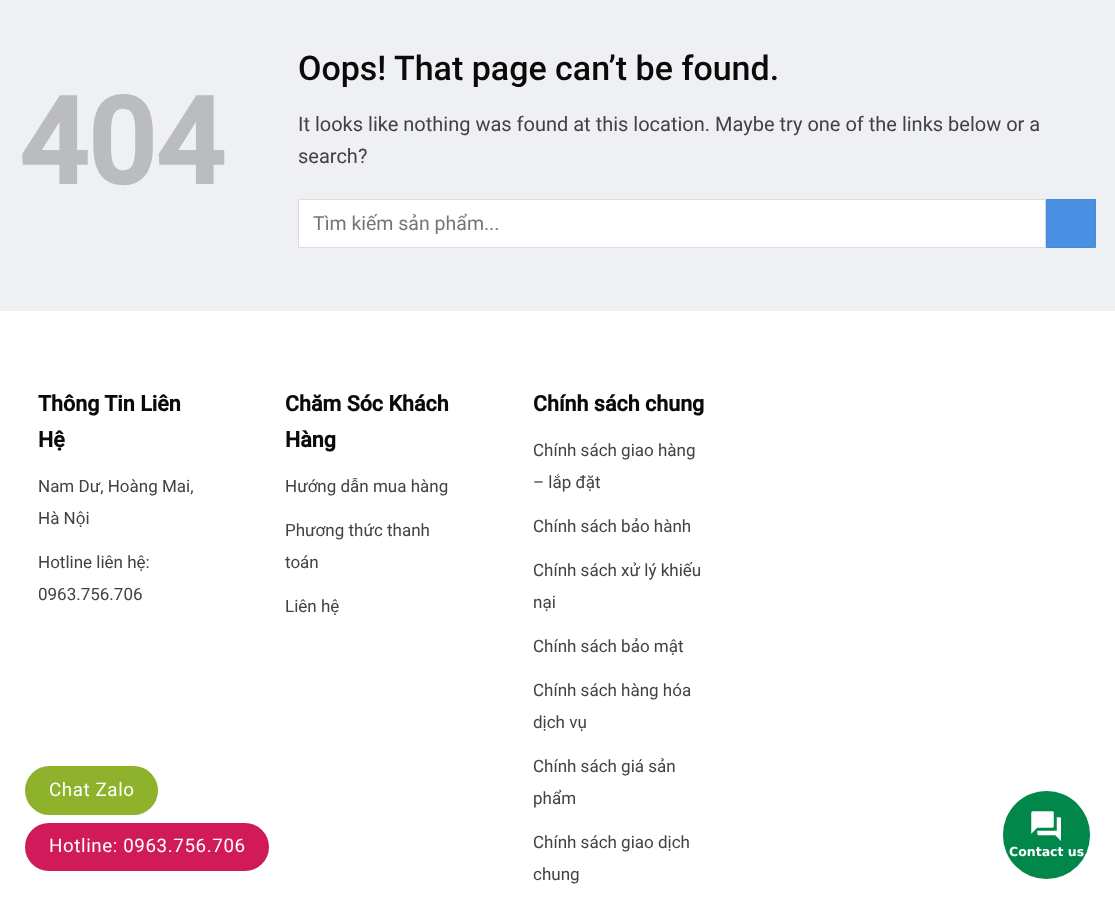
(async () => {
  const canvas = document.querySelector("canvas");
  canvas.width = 1115;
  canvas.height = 903;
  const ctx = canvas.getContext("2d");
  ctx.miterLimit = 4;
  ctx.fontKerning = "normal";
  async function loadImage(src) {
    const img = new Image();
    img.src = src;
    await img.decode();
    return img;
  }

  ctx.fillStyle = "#eff0f3";
  ctx.fillRect(0, 0, 1115, 903);
  ctx.fillStyle = "#ffffff";
  ctx.beginPath();
  ctx.rect(298.5, 199.5, 747, 48);
  ctx.fill();
  ctx.strokeStyle = "#dddddd";
  ctx.stroke();
  ctx.fillStyle = "#4a90e2";
  ctx.beginPath();
  ctx.rect(1046.5, 199.5, 49, 48);
  ctx.fill();
  ctx.strokeStyle = "#4689d7";
  ctx.stroke();
  ctx.fillStyle = "#ffffff";
  ctx.fillRect(0, 311, 1115, 592);
  ctx.fillStyle = "#8eb22b";
  ctx.beginPath();
  ctx.roundRect(25, 766, 133, 49, 24.5);
  ctx.fill();
  ctx.fillStyle = "#d11a59";
  ctx.beginPath();
  ctx.roundRect(25, 823, 244, 48, 24);
  ctx.fill();
  ctx.fillStyle = "#008749";
  ctx.beginPath();
  ctx.roundRect(1003, 791, 87, 88, 43.5);
  ctx.fill();
  ctx.drawImage(await loadImage("img/1.png"), 1031, 811, 30, 30);
  ctx.font = "bold 120px Roboto";
  ctx.fillStyle = "#bbbcbe";
  ctx.fillText("404", 19, 184);
  ctx.font = "500 34px Roboto";
  ctx.fillStyle = "#0a0a0a";
  ctx.fillText("Oops! That page can’t be found.", 298, 80);
  ctx.font = "20px Roboto";
  ctx.fillStyle = "#424242";
  ctx.fillText("It looks like nothing was found at this location. Maybe try one of the links below or a", 298, 131);
  ctx.fillText("search?", 298, 163);
  ctx.font = "19.5px Roboto";
  ctx.fillStyle = "#757575";
  ctx.fillText("Tìm kiếm sản phẩm...", 313, 230);
  ctx.font = "bold 21.5px Roboto";
  ctx.fillStyle = "#0a0a0a";
  ctx.fillText("Thông Tin Liên", 38, 411);
  ctx.fillText("Hệ", 38, 447);
  ctx.font = "17px Roboto";
  ctx.fillStyle = "#424242";
  for (const [text, x, y] of [
    ["Nam Dư, Hoàng Mai,", 38, 492],
    ["Hà Nội", 38, 524],
    ["Hotline liên hệ:", 38, 568],
    ["0963.756.706", 38, 600],
  ]) {
    ctx.fillText(text, x, y);
  }
  ctx.font = "bold 21.5px Roboto";
  ctx.fillStyle = "#0a0a0a";
  ctx.fillText("Chăm Sóc Khách", 285, 411);
  ctx.fillText("Hàng", 285, 447);
  ctx.font = "17px Roboto";
  ctx.fillStyle = "#424242";
  for (const [text, x, y] of [
    ["Hướng dẫn mua hàng", 285, 492],
    ["Phương thức thanh", 285, 536],
    ["toán", 285, 568],
    ["Liên hệ", 285, 612],
  ]) {
    ctx.fillText(text, x, y);
  }
  ctx.font = "bold 21.5px Roboto";
  ctx.fillStyle = "#0a0a0a";
  ctx.fillText("Chính sách chung", 533, 411);
  ctx.font = "17px Roboto";
  ctx.fillStyle = "#424242";
  for (const [text, x, y] of [
    ["Chính sách giao hàng", 533, 456],
    ["– lắp đặt", 533, 488],
    ["Chính sách bảo hành", 533, 532],
    ["Chính sách xử lý khiếu", 533, 576],
    ["nại", 533, 608],
    ["Chính sách bảo mật", 533, 652],
    ["Chính sách hàng hóa", 533, 696],
    ["dịch vụ", 533, 728],
    ["Chính sách giá sản", 533, 772],
    ["phẩm", 533, 804],
    ["Chính sách giao dịch", 533, 848],
    ["chung", 533, 880],
  ]) {
    ctx.fillText(text, x, y);
  }
  ctx.letterSpacing = "0.6px";
  ctx.font = "18.75px Roboto";
  ctx.fillStyle = "#ffffff";
  ctx.fillText("Chat Zalo", 49, 796);
  ctx.fillText("Hotline: 0963.756.706", 49, 852);
  ctx.letterSpacing = "0px";
  ctx.font = "bold 12.5px DejaVu Sans";
  ctx.fillText("Contact us", 1009, 856);
})();
